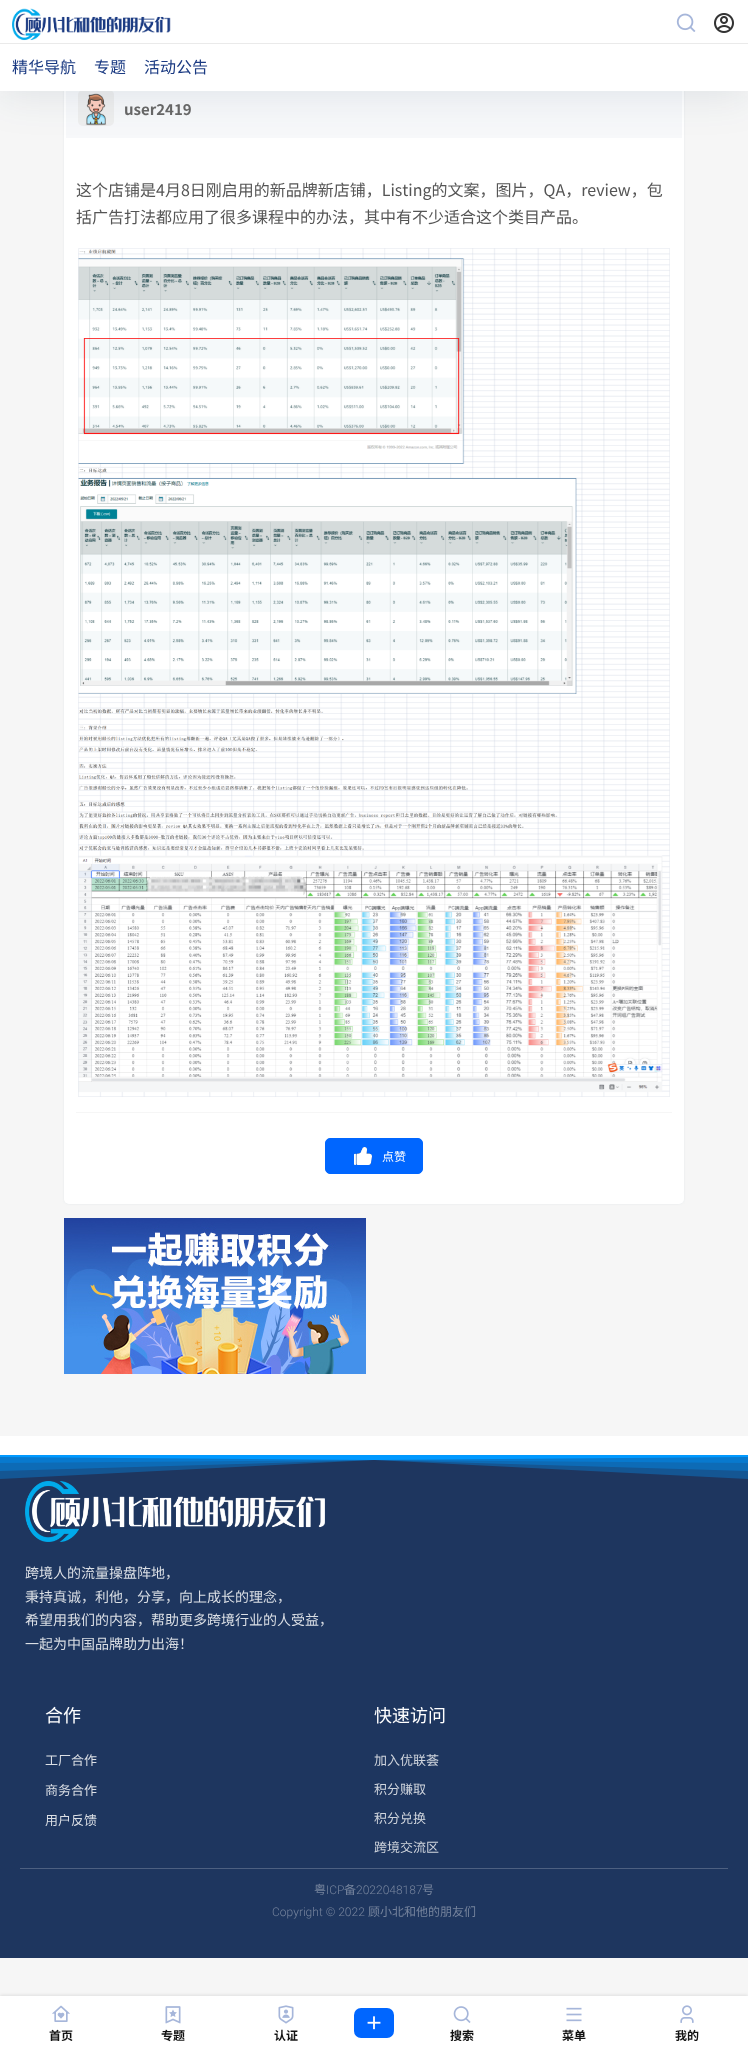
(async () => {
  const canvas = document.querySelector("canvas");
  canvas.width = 748;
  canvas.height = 2051;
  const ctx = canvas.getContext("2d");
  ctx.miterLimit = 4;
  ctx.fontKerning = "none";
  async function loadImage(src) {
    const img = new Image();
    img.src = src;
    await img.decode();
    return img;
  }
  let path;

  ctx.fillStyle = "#f6f6f6";
  ctx.fillRect(0, 0, 748, 2051);
  ctx.fillStyle = "rgba(98, 124, 153, 0.1)";
  ctx.filter = "blur(1px)";
  ctx.beginPath();
  ctx.roundRect(64, 0, 620, 1204, 5);
  ctx.fill();
  ctx.filter = "none";
  ctx.fillStyle = "#ffffff";
  ctx.beginPath();
  ctx.roundRect(64, 0, 620, 1204, 5);
  ctx.fill();
  ctx.fillStyle = "#f7f8fa";
  ctx.fillRect(66, 91, 616, 47);
  ctx.fillStyle = "#eeeeee";
  ctx.beginPath();
  ctx.roundRect(78, 90, 36, 36, 5);
  ctx.fill();
  ctx.drawImage(await loadImage("img/4.png"), 85, 93, 22, 33);
  ctx.fillStyle = "rgba(17, 58, 93, 0.1)";
  ctx.filter = "blur(20px)";
  ctx.beginPath();
  ctx.rect(0, 5, 748, 91);
  ctx.fill();
  ctx.filter = "none";
  ctx.fillStyle = "#ffffff";
  ctx.fillRect(0, 0, 748, 91);
  ctx.drawImage(await loadImage("img/1.png"), 676, 13, 20, 19);
  ctx.drawImage(await loadImage("img/2.png"), 714, 13, 20, 20);
  ctx.fillStyle = "#eaeaea";
  ctx.fillRect(0, 43, 748, 1);
  ctx.drawImage(await loadImage("img/3.png"), 12, 8, 159, 33);
  ctx.drawImage(await loadImage("img/5.png"), 78, 248, 592, 849);
  ctx.fillStyle = "#f6f6f6";
  ctx.fillRect(76, 1112, 596, 1);
  ctx.fillStyle = "#0066ff";
  ctx.beginPath();
  ctx.roundRect(325.5, 1138.5, 97, 35, 4.5);
  ctx.fill();
  ctx.strokeStyle = "#0066ff";
  ctx.stroke();
  ctx.drawImage(await loadImage("img/6.png"), 354, 1147, 18, 18);
  ctx.drawImage(await loadImage("img/7.png"), 64, 1218, 302, 156);
  ctx.fillStyle = "#ffffff";
  ctx.fillRect(0, 1436, 748, 19);
  ctx.fillStyle = "#1e365f";
  ctx.fillRect(0, 1457, 748, 501);
  ctx.fillStyle = "rgba(0, 153, 255, 0.33)";
  path = new Path2D("M-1 1455V1479L374 1460L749 1479V1455Z");
  ctx.fill(path);
  path = new Path2D("M-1 1455V1471L374 1460L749 1471V1455Z");
  ctx.fill(path);
  path = new Path2D("M-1 1455V1463L374 1460L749 1463V1455Z");
  ctx.fill(path);
  ctx.fillStyle = "#0099ff";
  path = new Path2D("M-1 1455V1457L374 1460L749 1457V1455Z");
  ctx.fill(path);
  ctx.drawImage(await loadImage("img/8.png"), 25, 1481, 300, 61);
  ctx.fillStyle = "#4d6081";
  ctx.fillRect(20, 1868, 708, 1);
  ctx.fillStyle = "rgba(26, 26, 26, 0.1)";
  ctx.filter = "blur(1.5px)";
  ctx.beginPath();
  ctx.rect(0, 1995, 748, 55);
  ctx.fill();
  ctx.filter = "none";
  ctx.fillStyle = "#ffffff";
  ctx.fillRect(0, 1996, 748, 55);
  ctx.drawImage(await loadImage("img/9.png"), 52, 2005, 18, 17);
  ctx.drawImage(await loadImage("img/10.png"), 165, 2006, 16, 18);
  ctx.drawImage(await loadImage("img/11.png"), 278, 2005, 16, 19);
  ctx.fillStyle = "#0066ff";
  ctx.beginPath();
  ctx.roundRect(354, 2008, 40, 30, 7);
  ctx.fill();
  ctx.drawImage(await loadImage("img/12.png"), 367, 2016, 14, 14);
  ctx.drawImage(await loadImage("img/13.png"), 453, 2006, 18, 17);
  ctx.drawImage(await loadImage("img/14.png"), 566, 2007, 16, 15);
  ctx.drawImage(await loadImage("img/15.png"), 680, 2005, 14, 18);
  ctx.font = "16px Noto Sans CJK SC";
  ctx.fillStyle = "#1a3a82";
  for (const [text, x, y] of [
    ["精华导航", 12, 73],
    ["专题", 94, 73],
    ["活动公告", 144, 73],
  ]) {
    ctx.fillText(text, x, y);
  }
  ctx.font = "bold 15px Noto Sans CJK SC";
  ctx.fillStyle = "#666666";
  ctx.fillText("user2419", 124, 115);
  ctx.font = "16px Noto Sans CJK SC";
  ctx.fillStyle = "#555555";
  ctx.fillText("这个店铺是4月8日刚启用的新品牌新店铺，Listing的文案，图片，QA，review，包", 76, 196);
  ctx.fillText("括广告打法都应用了很多课程中的办法，其中有不少适合这个类目产品。", 76, 223);
  ctx.font = "12px Noto Sans CJK SC";
  ctx.fillStyle = "#ffffff";
  ctx.fillText("点赞", 382, 1161);
  ctx.font = "14px Noto Sans CJK SC";
  ctx.fillStyle = "#dbdfe5";
  for (const [text, x, y] of [
    ["跨境人的流量操盘阵地，", 25, 1578],
    ["秉持真诚，利他，分享，向上成长的理念，", 25, 1602],
    ["希望用我们的内容，帮助更多跨境行业的人受益，", 25, 1625],
    ["一起为中国品牌助力出海！", 25, 1649],
  ]) {
    ctx.fillText(text, x, y);
  }
  ctx.font = "18px Noto Sans CJK SC";
  ctx.fillStyle = "#ffffff";
  ctx.fillText("合作", 45, 1722);
  ctx.font = "13px Noto Sans CJK SC";
  ctx.fillStyle = "#dbdfe5";
  for (const [text, x, y] of [
    ["工厂合作", 45, 1765],
    ["商务合作", 45, 1795],
    ["用户反馈", 45, 1825],
  ]) {
    ctx.fillText(text, x, y);
  }
  ctx.font = "18px Noto Sans CJK SC";
  ctx.fillStyle = "#ffffff";
  ctx.fillText("快速访问", 374, 1722);
  ctx.font = "13px Noto Sans CJK SC";
  ctx.fillStyle = "#d0d5dd";
  for (const [text, x, y] of [
    ["加入优联荟", 374, 1765],
    ["积分赚取", 374, 1794],
    ["积分兑换", 374, 1823],
    ["跨境交流区", 374, 1852],
  ]) {
    ctx.fillText(text, x, y);
  }
  ctx.font = "12px Noto Sans CJK SC";
  ctx.fillStyle = "#76849d";
  ctx.fillText("粤", 314, 1894);
  ctx.font = "300 12px Roboto";
  ctx.fillText("ICP", 326, 1894);
  ctx.font = "12px Noto Sans CJK SC";
  ctx.fillText("备", 344, 1894);
  ctx.font = "300 12px Roboto";
  ctx.fillText("2022048187", 356, 1894);
  ctx.font = "12px Noto Sans CJK SC";
  ctx.fillText("号", 422, 1894);
  ctx.font = "300 12px Roboto";
  ctx.fillText("Copyright © 2022", 272, 1916);
  ctx.font = "12px Noto Sans CJK SC";
  ctx.fillText("顾小北和他的朋友们", 368, 1916);
  ctx.font = "bold 12px Noto Sans CJK SC";
  ctx.fillStyle = "#121212";
  for (const [text, x, y] of [
    ["首页", 49, 2040],
    ["专题", 161, 2040],
    ["认证", 274, 2040],
    ["搜索", 450, 2040],
    ["菜单", 562, 2040],
    ["我的", 675, 2040],
  ]) {
    ctx.fillText(text, x, y);
  }
})();
